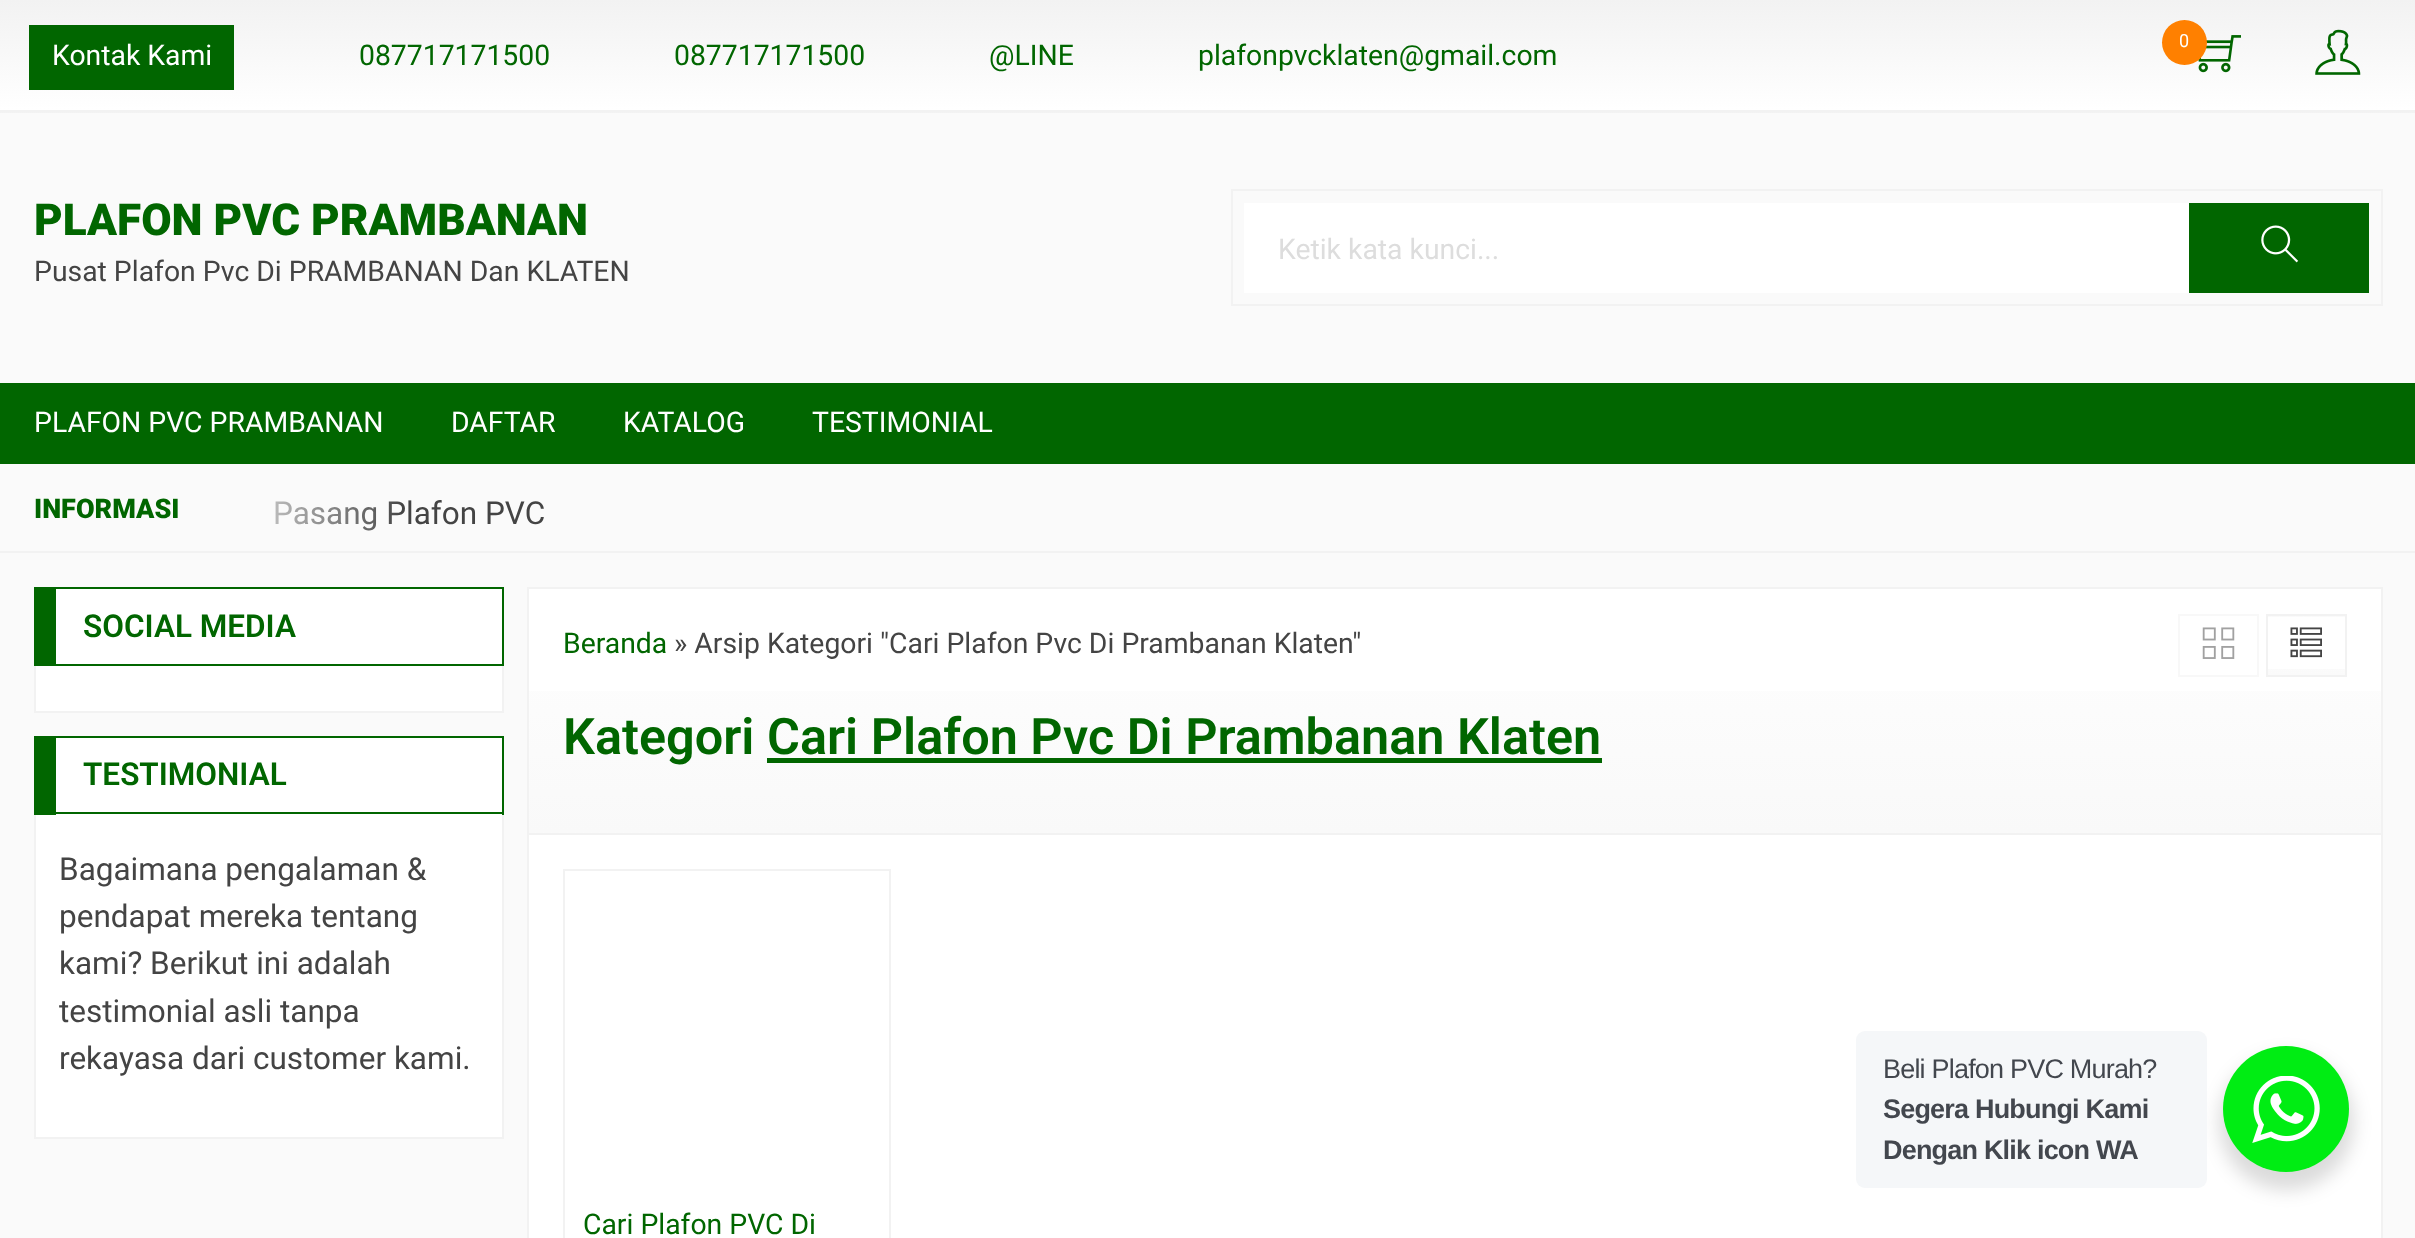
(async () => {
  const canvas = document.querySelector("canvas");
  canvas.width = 2415;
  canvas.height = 1238;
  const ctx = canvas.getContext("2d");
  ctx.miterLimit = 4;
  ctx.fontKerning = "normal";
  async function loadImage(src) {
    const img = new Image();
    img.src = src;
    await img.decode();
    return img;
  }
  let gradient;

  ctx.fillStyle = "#fafafa";
  ctx.fillRect(0, 0, 2415, 1238);
  gradient = ctx.createLinearGradient(1208, 0, 1208, 110);
  gradient.addColorStop(0, "#f2f2f2");
  gradient.addColorStop(1, "#ffffff");
  ctx.fillStyle = gradient;
  ctx.fillRect(0, 0, 2415, 110);
  gradient = ctx.createLinearGradient(1208, 110, 1208, 221);
  gradient.addColorStop(0, "#f2f2f2");
  gradient.addColorStop(1, "#ffffff");
  ctx.fillStyle = gradient;
  ctx.fillRect(0, 110, 2415, 3);
  ctx.drawImage(await loadImage("img/1.png"), 2198, 35, 43, 38);
  ctx.fillStyle = "#ff8000";
  ctx.beginPath();
  ctx.arc(2184.5, 42.5, 22.5, 0, Math.PI * 2);
  ctx.fill();
  ctx.drawImage(await loadImage("img/2.png"), 2315, 29, 46, 46);
  ctx.fillStyle = "#016600";
  ctx.fillRect(29, 25, 205, 65);
  ctx.strokeStyle = "#f2f2f2";
  ctx.lineWidth = 2;
  ctx.strokeRect(1232, 190, 1150, 115);
  ctx.fillStyle = "#ffffff";
  ctx.fillRect(1244, 203, 945, 90);
  ctx.fillStyle = "#016600";
  ctx.fillRect(2189, 203, 180, 90);
  ctx.drawImage(await loadImage("img/3.png"), 2261, 225, 38, 38);
  ctx.fillRect(0, 383, 2415, 81);
  ctx.fillStyle = "#f2f2f2";
  ctx.fillRect(0, 551, 2415, 2);
  ctx.fillStyle = "#ffffff";
  ctx.beginPath();
  ctx.rect(35, 588, 468, 124);
  ctx.fill();
  ctx.stroke();
  for (const [x, y, w, h, color] of [
    [56, 587, 448, 2, "#016600"],
    [502, 587, 2, 79, "#016600"],
    [56, 664, 448, 2, "#016600"],
    [34, 587, 22, 79, "#016600"],
  ]) {
    ctx.fillStyle = color;
    ctx.fillRect(x, y, w, h);
  }
  ctx.fillStyle = "#ffffff";
  ctx.beginPath();
  ctx.rect(35, 737, 468, 401);
  ctx.fill();
  ctx.stroke();
  for (const [x, y, w, h, color] of [
    [56, 736, 448, 2, "#016600"],
    [502, 736, 2, 79, "#016600"],
    [56, 812, 448, 2, "#016600"],
    [34, 736, 22, 79, "#016600"],
  ]) {
    ctx.fillStyle = color;
    ctx.fillRect(x, y, w, h);
  }
  ctx.fillStyle = "#ffffff";
  ctx.beginPath();
  ctx.rect(528, 588, 1854, 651);
  ctx.fill();
  ctx.stroke();
  gradient = ctx.createLinearGradient(1455, 589, 1455, 833);
  gradient.addColorStop(0, "#ffffff");
  gradient.addColorStop(1, "#f9f9f9");
  ctx.fillStyle = gradient;
  ctx.fillRect(529, 691, 1852, 142);
  ctx.fillStyle = "#f2f2f2";
  ctx.fillRect(529, 833, 1852, 2);
  ctx.strokeStyle = "#f8f8f8";
  ctx.strokeRect(2179, 615, 79, 61);
  gradient = ctx.createLinearGradient(2306, 617, 2306, 558);
  gradient.addColorStop(0, "#fafafa");
  gradient.addColorStop(1, "#ffffff");
  ctx.fillStyle = gradient;
  ctx.fillRect(2266, 616, 81, 1);
  gradient = ctx.createLinearGradient(2306, 675, 2306, 617);
  gradient.addColorStop(0, "#fafafa");
  gradient.addColorStop(1, "#ffffff");
  ctx.fillStyle = gradient;
  ctx.fillRect(2268, 669, 77, 6);
  ctx.strokeStyle = "#f2f2f2";
  ctx.strokeRect(2267, 615, 79, 61);
  ctx.drawImage(await loadImage("img/4.png"), 2202, 627, 33, 32);
  ctx.drawImage(await loadImage("img/5.png"), 2290, 627, 32, 31);
  ctx.fillStyle = "#016600";
  ctx.fillRect(767, 758, 835, 5);
  ctx.strokeRect(564, 870, 326, 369);
  ctx.fillStyle = "rgba(0, 0, 0, 0.14)";
  ctx.filter = "blur(9px)";
  ctx.beginPath();
  ctx.roundRect(2219, 1055, 135, 135, 67.5);
  ctx.fill();
  ctx.filter = "none";
  ctx.fillStyle = "#f5f7f9";
  ctx.beginPath();
  ctx.roundRect(1856, 1031, 351, 157, 9);
  ctx.fill();
  ctx.fillStyle = "#00ed13";
  ctx.beginPath();
  ctx.arc(2286, 1109, 63, 0, Math.PI * 2);
  ctx.fill();
  ctx.drawImage(await loadImage("img/6.png"), 2252, 1076, 68, 67);
  ctx.font = "18px Roboto";
  ctx.fillStyle = "#ffffff";
  ctx.fillText("0", 2179, 47);
  ctx.font = "28.35px Roboto";
  ctx.fillText("Kontak Kami", 52, 65);
  ctx.fillStyle = "#016600";
  for (const [text, x, y] of [
    ["087717171500", 359, 65],
    ["087717171500", 674, 65],
    ["@LINE", 989, 65],
    ["plafonpvcklaten@gmail.com", 1198, 65],
  ]) {
    ctx.fillText(text, x, y);
  }
  ctx.font = "900 44.1px Roboto";
  ctx.fillText("PLAFON PVC PRAMBANAN", 34, 235);
  ctx.font = "28.35px Roboto";
  ctx.fillStyle = "#444444";
  ctx.fillText("Pusat Plafon Pvc Di PRAMBANAN Dan KLATEN", 34, 281);
  ctx.fillStyle = "#dddddd";
  ctx.fillText("Ketik kata kunci...", 1278, 259);
  ctx.fillStyle = "#ffffff";
  for (const [text, x, y] of [
    ["PLAFON PVC PRAMBANAN", 34, 432],
    ["DAFTAR", 451, 432],
    ["KATALOG", 623, 432],
    ["TESTIMONIAL", 812, 432],
  ]) {
    ctx.fillText(text, x, y);
  }
  ctx.font = "900 27px Roboto";
  ctx.fillStyle = "#016600";
  ctx.fillText("INFORMASI", 34, 518);
  ctx.font = "31.5px Roboto";
  ctx.fillStyle = "#444444";
  ctx.fillText("Pasang Plafon PVC", 273, 524);
  gradient = ctx.createLinearGradient(0, 509, 405, 509);
  gradient.addColorStop(0, "#fafafa");
  gradient.addColorStop(0.5, "#fafafa");
  gradient.addColorStop(1, "rgba(250, 250, 250, 0)");
  ctx.fillStyle = gradient;
  ctx.fillRect(275, 501, 126, 30);
  ctx.font = "600 31.5px Roboto";
  ctx.fillStyle = "#016600";
  ctx.fillText("SOCIAL MEDIA", 83, 637);
  ctx.fillText("TESTIMONIAL", 83, 785);
  ctx.font = "31.5px Roboto";
  ctx.fillStyle = "#444444";
  for (const [text, x, y] of [
    ["Bagaimana pengalaman &", 59, 880],
    ["pendapat mereka tentang", 59, 927],
    ["kami? Berikut ini adalah", 59, 974],
    ["testimonial asli tanpa", 59, 1022],
    ["rekayasa dari customer kami.", 59, 1069],
  ]) {
    ctx.fillText(text, x, y);
  }
  ctx.font = "28.35px Roboto";
  ctx.fillStyle = "#016600";
  ctx.fillText("Beranda", 563, 653);
  ctx.fillStyle = "#444444";
  ctx.fillText("» Arsip Kategori \"Cari Plafon Pvc Di Prambanan Klaten\"", 674, 653);
  ctx.font = "600 50.4px Roboto";
  ctx.fillStyle = "#016600";
  ctx.fillText("Kategori Cari Plafon Pvc Di Prambanan Klaten", 563, 754);
  ctx.font = "28.35px Roboto";
  ctx.fillText("Cari Plafon PVC Di", 583, 1234);
  ctx.letterSpacing = "-0.8px";
  ctx.font = "27px Liberation Sans";
  ctx.fillStyle = "#43474e";
  ctx.fillText("Beli Plafon PVC Murah?", 1883, 1078);
  ctx.font = "bold 27px Liberation Sans";
  ctx.fillText("Segera Hubungi Kami", 1883, 1118);
  ctx.fillText("Dengan Klik icon WA", 1883, 1159);
})();
